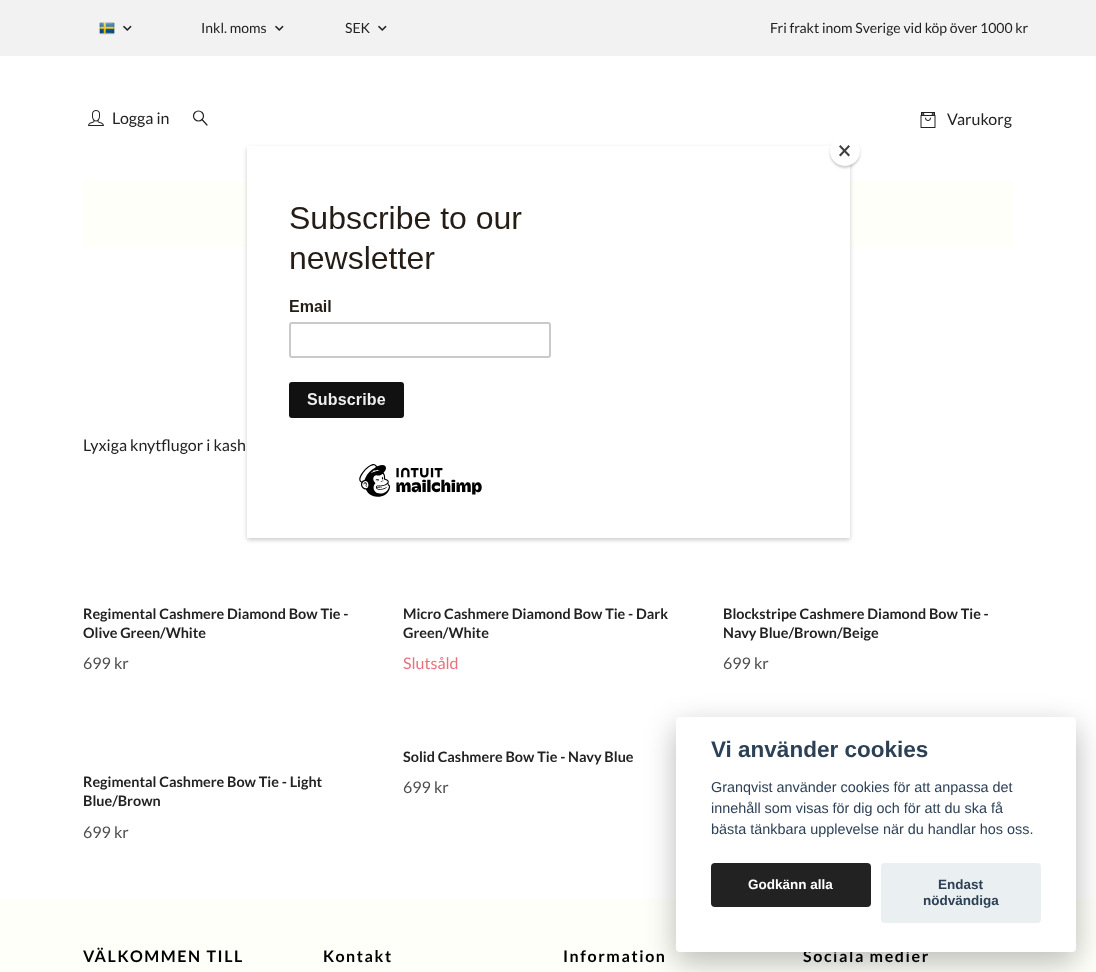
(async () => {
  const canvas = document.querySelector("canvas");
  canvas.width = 1096;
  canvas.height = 972;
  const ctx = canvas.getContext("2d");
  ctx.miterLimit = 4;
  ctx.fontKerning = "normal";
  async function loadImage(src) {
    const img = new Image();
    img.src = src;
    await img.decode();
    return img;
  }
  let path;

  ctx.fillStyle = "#ffffff";
  ctx.fillRect(0, 0, 1096, 972);
  ctx.fillStyle = "#f2f2f2";
  ctx.fillRect(0, 0, 1096, 56);
  ctx.drawImage(await loadImage("img/1.png"), 99, 22, 16, 13);
  ctx.drawImage(await loadImage("img/2.png"), 123, 25, 9, 6);
  ctx.drawImage(await loadImage("img/2.png"), 275, 25, 9, 6);
  ctx.drawImage(await loadImage("img/2.png"), 378, 25, 9, 6);
  ctx.drawImage(await loadImage("img/3.png"), 88, 110, 16, 16);
  path = new Path2D("M202 119.5L207 125");
  ctx.strokeStyle = "#222222";
  ctx.lineWidth = 1.2;
  ctx.lineCap = "round";
  ctx.lineJoin = "round";
  ctx.stroke(path);
  ctx.beginPath();
  ctx.arc(198.5, 116, 5, 0, Math.PI * 2);
  ctx.stroke();
  ctx.drawImage(await loadImage("img/4.png"), 920, 112, 16, 16);
  ctx.fillStyle = "#fffffa";
  ctx.fillRect(83, 181, 930, 66);
  ctx.fillStyle = "rgba(0, 0, 0, 0.2)";
  ctx.filter = "blur(1px)";
  ctx.beginPath();
  ctx.roundRect(830, 138, 30, 30, 15);
  ctx.fill();
  ctx.filter = "none";
  ctx.save();
  path = new Path2D("M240 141H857V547H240ZM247 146H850V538H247Z");
  ctx.clip(path, "evenodd");
  ctx.filter = "blur(2px)";
  ctx.beginPath();
  ctx.rect(247, 148, 603, 392);
  ctx.fill();
  ctx.filter = "none";
  ctx.restore();
  ctx.fillStyle = "#ffffff";
  ctx.beginPath();
  ctx.arc(845, 151, 15, 0, Math.PI * 2);
  ctx.fill();
  ctx.fillStyle = "#414141";
  path = new Path2D("M848.5 145L850 146.5L840.5 156.5L839 155Z");
  ctx.fill(path);
  path = new Path2D("M839 146.5L840.5 145L850 155L848.5 156.5Z");
  ctx.fill(path);
  ctx.drawImage(await loadImage("img/5.png"), 247, 181, 603, 316);
  ctx.fillStyle = "#fffffa";
  ctx.fillRect(0, 898, 1096, 74);
  ctx.fillStyle = "rgba(2, 2, 3, 0.28)";
  ctx.filter = "blur(15px)";
  ctx.beginPath();
  ctx.roundRect(676, 727, 400, 235, 4);
  ctx.fill();
  ctx.filter = "none";
  ctx.font = "14px Lato";
  ctx.fillStyle = "#222222";
  for (const [text, x, y] of [
    ["Inkl. moms", 201, 33],
    ["SEK", 345, 33],
    ["Fri frakt inom Sverige vid köp över 1000 kr", 770, 33],
  ]) {
    ctx.fillText(text, x, y);
  }
  ctx.font = "16px Lato";
  for (const [text, x, y] of [
    ["Logga in", 112, 124],
    ["Varukorg", 947, 125],
    ["Lyxiga knytflugor i kash", 83, 451],
  ]) {
    ctx.fillText(text, x, y);
  }
  ctx.font = "bold 14.4px Lato";
  ctx.fillText("Regimental Cashmere Diamond Bow Tie -", 83, 619);
  ctx.fillText("Olive Green/White", 83, 638);
  ctx.font = "16px Lato";
  ctx.fillStyle = "#4d4d4d";
  ctx.fillText("699 kr", 83, 669);
  ctx.font = "bold 14.4px Lato";
  ctx.fillStyle = "#222222";
  ctx.fillText("Micro Cashmere Diamond Bow Tie - Dark", 403, 619);
  ctx.fillText("Green/White", 403, 638);
  ctx.font = "16px Lato";
  ctx.fillStyle = "#e7727d";
  ctx.fillText("Slutsåld", 403, 669);
  ctx.font = "bold 14.4px Lato";
  ctx.fillStyle = "#222222";
  ctx.fillText("Blockstripe Cashmere Diamond Bow Tie -", 723, 619);
  ctx.fillText("Navy Blue/Brown/Beige", 723, 638);
  ctx.font = "16px Lato";
  ctx.fillStyle = "#4d4d4d";
  ctx.fillText("699 kr", 723, 669);
  ctx.font = "bold 14.4px Lato";
  ctx.fillStyle = "#222222";
  ctx.fillText("Regimental Cashmere Bow Tie - Light", 83, 787);
  ctx.fillText("Blue/Brown", 83, 806);
  ctx.font = "16px Lato";
  ctx.fillStyle = "#4d4d4d";
  ctx.fillText("699 kr", 83, 838);
  ctx.font = "bold 14.4px Lato";
  ctx.fillStyle = "#222222";
  ctx.fillText("Solid Cashmere Bow Tie - Navy Blue", 403, 762);
  ctx.font = "16px Lato";
  ctx.fillStyle = "#4d4d4d";
  ctx.fillText("699 kr", 403, 793);
  ctx.letterSpacing = "1.6px";
  ctx.font = "bold 16px Lato";
  ctx.fillStyle = "#000000";
  for (const [text, x, y] of [
    ["VÄLKOMMEN TILL", 83, 962],
    ["Kontakt", 323, 962],
    ["Information", 563, 962],
    ["Sociala medier", 803, 962],
  ]) {
    ctx.fillText(text, x, y);
  }
  ctx.fillStyle = "#ffffff";
  ctx.beginPath();
  ctx.roundRect(676, 717, 400, 235, 4);
  ctx.fill();
  ctx.fillStyle = "#222222";
  ctx.beginPath();
  ctx.roundRect(711, 863, 160, 44, 4);
  ctx.fill();
  ctx.letterSpacing = "0px";
  ctx.font = "bold 13.5px Liberation Sans";
  ctx.fillStyle = "#ffffff";
  ctx.fillText("Godkänn alla", 748, 889);
  ctx.font = "14.4px Liberation Sans";
  ctx.fillStyle = "#2d4156";
  for (const [text, x, y] of [
    ["bästa tänkbara upplevelse när du handlar hos oss.", 711, 834],
    ["innehåll som visas för dig och för att du ska få", 711, 813],
    ["Granqvist använder cookies för att anpassa det", 711, 792],
  ]) {
    ctx.fillText(text, x, y);
  }
  ctx.font = "bold 22.5px Liberation Sans";
  ctx.fillText("Vi använder cookies", 711, 757);
  ctx.fillStyle = "#eaeff2";
  ctx.beginPath();
  ctx.roundRect(881, 863, 160, 60, 4);
  ctx.fill();
  ctx.font = "bold 13.5px Liberation Sans";
  ctx.fillStyle = "#2d4156";
  ctx.fillText("nödvändiga", 923, 905);
  ctx.fillText("Endast", 938, 889);
})();
